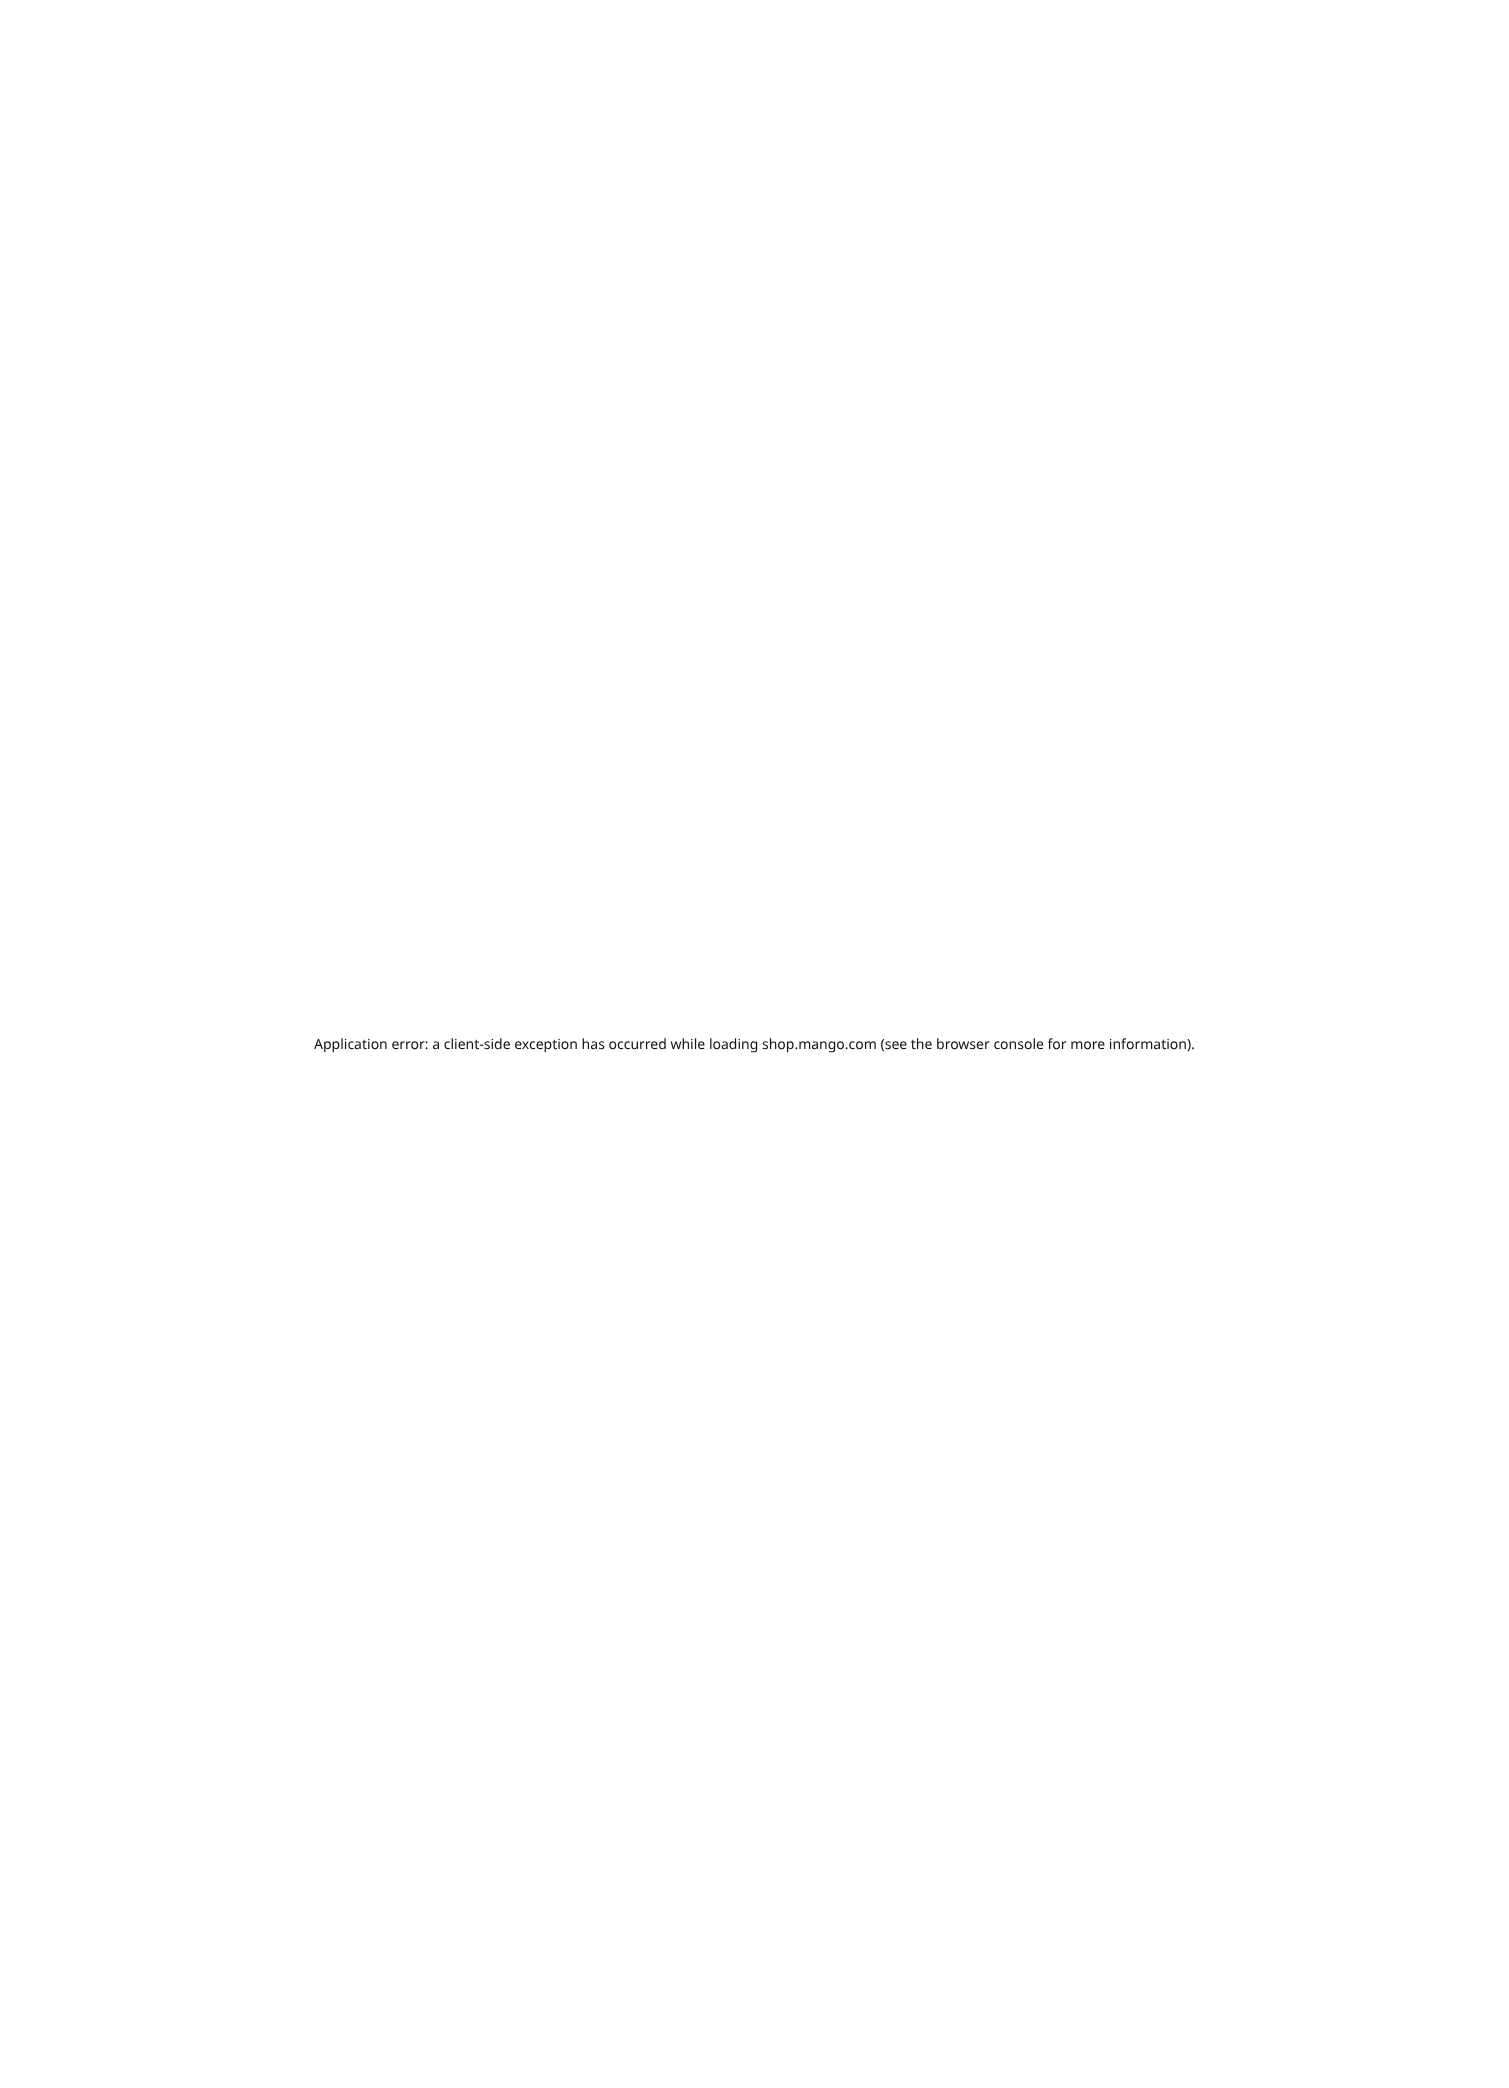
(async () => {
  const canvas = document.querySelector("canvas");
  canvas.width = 1509;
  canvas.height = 2088;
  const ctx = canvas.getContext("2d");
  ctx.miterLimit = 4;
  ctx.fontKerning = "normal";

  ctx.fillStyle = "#ffffff";
  ctx.fillRect(0, 0, 1509, 2088);
  ctx.font = "14px Noto Sans";
  ctx.fillStyle = "#121212";
  ctx.fillText("Application error: a client-side exception has occurred while loading shop.mango.com (see the browser console for more information).", 314, 1049);
})();
